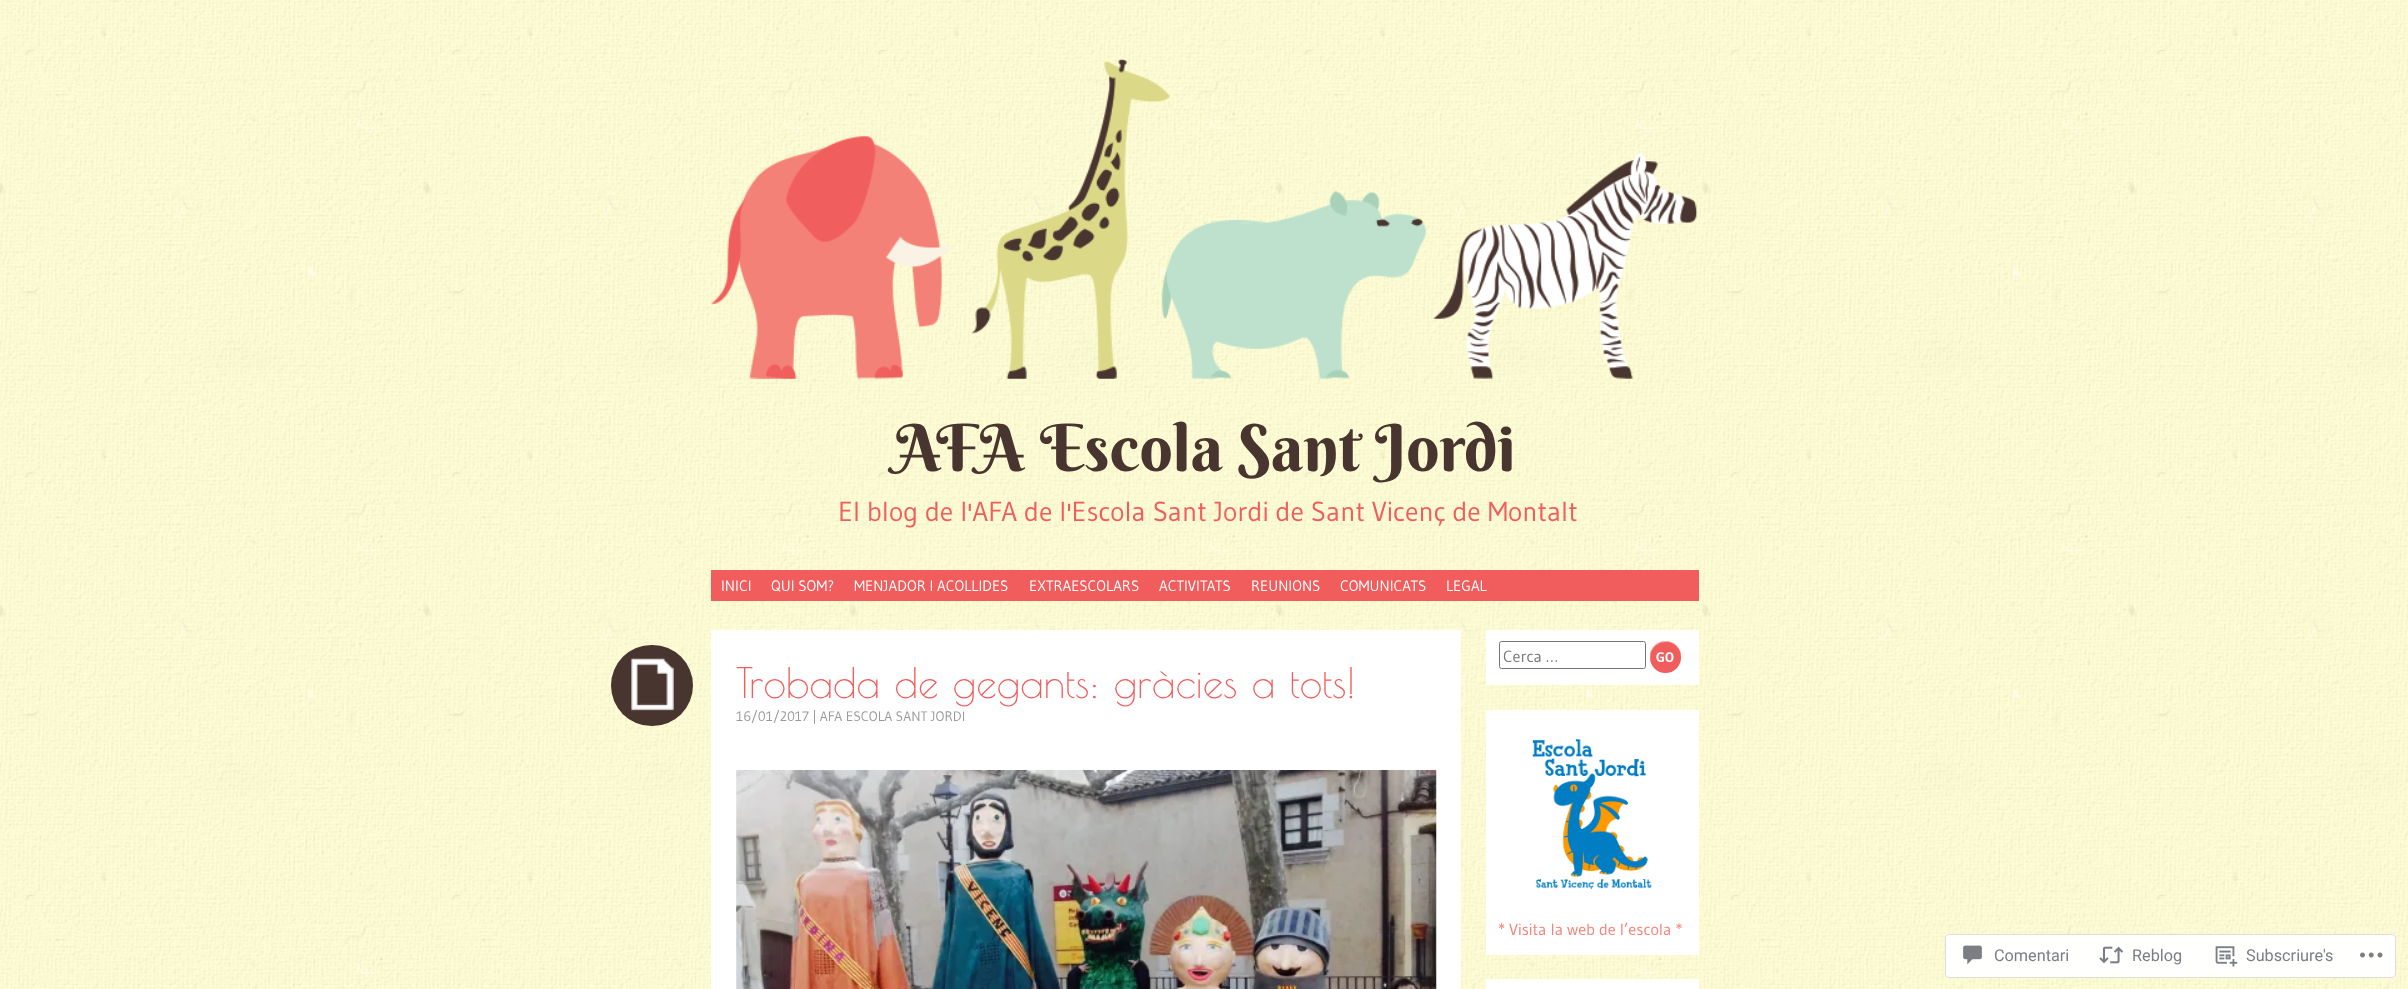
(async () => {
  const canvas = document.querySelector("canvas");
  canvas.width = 2408;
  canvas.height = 989;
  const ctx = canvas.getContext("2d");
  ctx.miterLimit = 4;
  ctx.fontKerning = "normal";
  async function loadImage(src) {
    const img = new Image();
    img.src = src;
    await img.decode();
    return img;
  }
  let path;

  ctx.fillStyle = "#ffffff";
  ctx.fillRect(0, 0, 2408, 989);
  ctx.drawImage(await loadImage("img/1.png"), 0, 0, 2408, 989);
  ctx.drawImage(await loadImage("img/2.png"), 711, 58, 987, 321);
  ctx.fillStyle = "#f15d5d";
  ctx.fillRect(711, 570, 988, 31);
  ctx.fillStyle = "#ffffff";
  ctx.fillRect(711, 630, 750, 359);
  ctx.fillStyle = "#49352f";
  ctx.beginPath();
  ctx.roundRect(611, 645, 82, 81, 40.5);
  ctx.fill();
  ctx.drawImage(await loadImage("img/3.png"), 631, 658, 43, 53);
  ctx.drawImage(await loadImage("img/4.png"), 736, 770, 701, 219);
  ctx.fillStyle = "#ffffff";
  ctx.fillRect(1486, 630, 213, 55);
  ctx.beginPath();
  ctx.roundRect(1499.5, 641.5, 146, 27, 2);
  ctx.strokeStyle = "#767676";
  ctx.stroke();
  ctx.fillStyle = "#f15d5d";
  ctx.beginPath();
  ctx.roundRect(1650, 641, 31, 32, 15.5);
  ctx.fill();
  ctx.fillStyle = "rgba(255, 255, 255, 0.5)";
  path = new Path2D("M1666 642C1676 642 1681 650 1681 657.5C1681.5 637.5 1654 635 1650.5 653.5C1649.5 656.5 1650 659.5 1651 662.5C1648.5 653.5 1653.5 642 1666 642Z");
  ctx.fill(path);
  ctx.fillStyle = "#ffffff";
  ctx.fillRect(1486, 710, 213, 245);
  ctx.drawImage(await loadImage("img/5.png"), 1532, 739, 120, 151);
  ctx.fillRect(1486, 979, 213, 10);
  ctx.fillStyle = "rgba(255, 255, 255, 0.98)";
  ctx.beginPath();
  ctx.roundRect(1945, 934, 451, 44, 4);
  ctx.fill();
  ctx.beginPath();
  ctx.roundRect(1945.5, 934.5, 450, 43, 3.5);
  ctx.strokeStyle = "rgba(220, 220, 222, 0.98)";
  ctx.stroke();
  ctx.drawImage(await loadImage("img/6.png"), 1963, 945, 19, 20);
  ctx.drawImage(await loadImage("img/7.png"), 2099, 946, 25, 18);
  ctx.drawImage(await loadImage("img/8.png"), 2215, 946, 23, 21);
  ctx.drawImage(await loadImage("img/9.png"), 2360, 952, 23, 6);
  ctx.font = "65px Berkshire Swash";
  ctx.fillStyle = "#49352f";
  ctx.fillText("AFA Escola Sant Jordi", 893, 471);
  ctx.font = "27.5px Gudea";
  ctx.fillStyle = "#f15d5d";
  ctx.fillText("El blog de l'AFA de l'Escola Sant Jordi de Sant Vicenç de Montalt", 838, 521);
  ctx.font = "15px Gudea";
  ctx.fillStyle = "#ffffff";
  for (const [text, x, y] of [
    ["INICI", 721, 591],
    ["QUI SOM?", 771, 591],
    ["MENJADOR I ACOLLIDES", 854, 591],
    ["EXTRAESCOLARS", 1029, 591],
    ["ACTIVITATS", 1159, 591],
    ["REUNIONS", 1251, 591],
    ["COMUNICATS", 1340, 591],
    ["LEGAL", 1446, 591],
  ]) {
    ctx.fillText(text, x, y);
  }
  ctx.font = "41.25px Poiret One";
  ctx.fillStyle = "#f15d5d";
  ctx.fillText("Trobada de gegants: gràcies a tots!", 736, 698);
  ctx.font = "13.75px Gudea";
  ctx.fillStyle = "#999999";
  ctx.fillText("16/01/2017 | AFA ESCOLA SANT JORDI", 736, 721);
  ctx.font = "16.25px Gudea";
  ctx.fillStyle = "#757575";
  ctx.fillText("Cerca …", 1503, 662);
  ctx.font = "bold 13.75px Gudea";
  ctx.fillStyle = "#ffffff";
  ctx.fillText("GO", 1656, 662);
  ctx.font = "16.25px Gudea";
  ctx.fillStyle = "#f48278";
  ctx.fillText("* Visita la web de l’escola *", 1498, 935);
  ctx.font = "16.25px Roboto";
  ctx.fillStyle = "#7b7f84";
  for (const [text, x, y] of [
    ["Comentari", 1994, 961],
    ["Reblog", 2132, 961],
    ["Subscriure's", 2246, 961],
  ]) {
    ctx.fillText(text, x, y);
  }
})();
